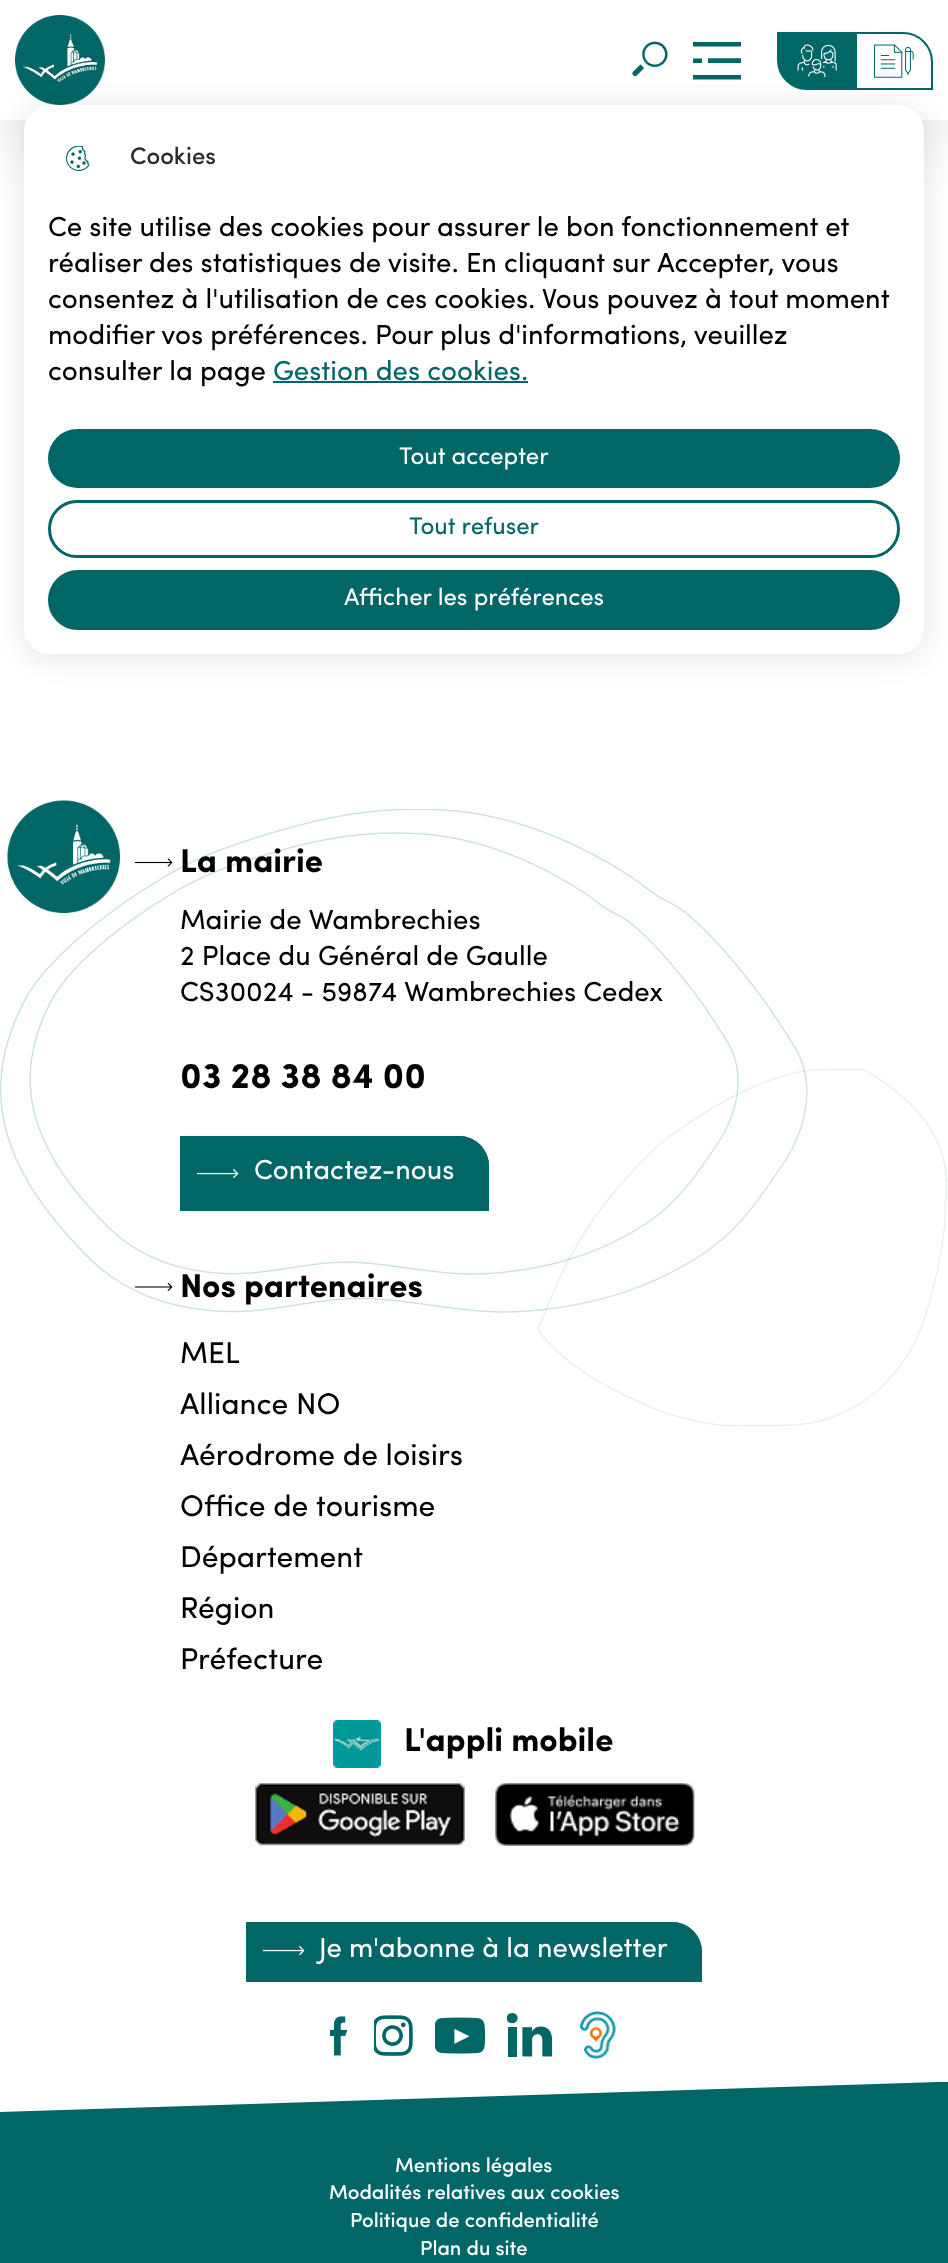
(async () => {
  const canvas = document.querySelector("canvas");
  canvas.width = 948;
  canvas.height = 2263;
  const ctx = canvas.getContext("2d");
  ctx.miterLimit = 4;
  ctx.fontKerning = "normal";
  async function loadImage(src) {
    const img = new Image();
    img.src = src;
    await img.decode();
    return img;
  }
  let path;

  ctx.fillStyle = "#ffffff";
  ctx.fillRect(0, 0, 948, 2263);
  ctx.fillStyle = "rgba(27, 27, 27, 0.1)";
  ctx.filter = "blur(30px)";
  ctx.beginPath();
  ctx.rect(0, 23, 948, 120);
  ctx.fill();
  ctx.filter = "none";
  ctx.fillStyle = "#ffffff";
  ctx.fillRect(0, 0, 948, 120);
  ctx.drawImage(await loadImage("img/2.png"), 15, 15, 90, 90);
  ctx.drawImage(await loadImage("img/3.png"), 632, 41, 36, 36);
  ctx.drawImage(await loadImage("img/4.png"), 693, 42, 48, 38);
  ctx.fillStyle = "#006666";
  ctx.beginPath();
  ctx.roundRect(778, 33, 76, 56, [0, 0, 0, 29]);
  ctx.fill();
  ctx.strokeStyle = "#006666";
  ctx.lineWidth = 2;
  ctx.stroke();
  ctx.drawImage(await loadImage("img/5.png"), 797, 44, 40, 34);
  ctx.beginPath();
  ctx.roundRect(856, 33, 76, 56, [0, 29, 0, 0]);
  ctx.stroke();
  ctx.drawImage(await loadImage("img/6.png"), 874, 44, 40, 34);
  ctx.fillStyle = "rgba(0, 0, 0, 0.1)";
  ctx.filter = "blur(15px)";
  ctx.beginPath();
  ctx.roundRect(24, 108, 900, 549, 26);
  ctx.fill();
  ctx.filter = "none";
  ctx.fillStyle = "#ffffff";
  ctx.beginPath();
  ctx.roundRect(24, 105, 900, 549, 26);
  ctx.fill();
  ctx.drawImage(await loadImage("img/1.png"), 66, 146, 24, 25);
  ctx.fillStyle = "#006666";
  ctx.fillRect(273, 381, 255, 2);
  ctx.beginPath();
  ctx.roundRect(49.5, 430.5, 849, 56, 28);
  ctx.fill();
  ctx.lineWidth = 3;
  ctx.stroke();
  ctx.beginPath();
  ctx.roundRect(49.5, 501.5, 849, 55, 27.5);
  ctx.stroke();
  ctx.beginPath();
  ctx.roundRect(49.5, 571.5, 849, 57, 28.5);
  ctx.fill();
  ctx.stroke();
  ctx.drawImage(await loadImage("img/7.png"), 0, 809, 948, 618);
  ctx.drawImage(await loadImage("img/8.png"), 7, 800, 113, 113);
  ctx.drawImage(await loadImage("img/9.png"), 135, 858, 38, 9);
  ctx.beginPath();
  ctx.roundRect(180, 1136, 309, 75, [0, 30, 0, 0]);
  ctx.fill();
  ctx.drawImage(await loadImage("img/10.png"), 197, 1169, 42, 9);
  ctx.beginPath();
  ctx.roundRect(181, 1137, 307, 73, [0, 29, 0, 0]);
  ctx.lineWidth = 2;
  ctx.stroke();
  ctx.drawImage(await loadImage("img/11.png"), 135, 1283, 38, 9);
  ctx.drawImage(await loadImage("img/12.png"), 333, 1720, 48, 48);
  ctx.drawImage(await loadImage("img/13.png"), 255, 1783, 210, 63);
  ctx.drawImage(await loadImage("img/14.png"), 495, 1783, 200, 63);
  ctx.beginPath();
  ctx.roundRect(246, 1922, 456, 60, [0, 30, 0, 0]);
  ctx.fill();
  ctx.drawImage(await loadImage("img/15.png"), 263, 1946, 42, 10);
  ctx.beginPath();
  ctx.roundRect(247, 1923, 454, 58, [0, 29, 0, 0]);
  ctx.stroke();
  ctx.drawImage(await loadImage("img/16.png"), 330, 2016, 18, 40);
  ctx.drawImage(await loadImage("img/17.png"), 374, 2015, 39, 41);
  ctx.drawImage(await loadImage("img/18.png"), 435, 2017, 51, 37);
  ctx.drawImage(await loadImage("img/19.png"), 507, 2013, 46, 44);
  ctx.drawImage(await loadImage("img/20.png"), 580, 2011, 36, 48);
  path = new Path2D("M0 2112V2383H948V2082H938Z");
  ctx.fill(path);
  path = new Path2D("M0 2157V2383H948V2082H944Z");
  ctx.fill(path);
  ctx.font = "500 24px Sofia";
  ctx.fillStyle = "#2b2b2b";
  ctx.fillText("Cookies", 130, 164);
  ctx.font = "27.6px Sofia";
  ctx.fillStyle = "#000000";
  for (const [text, x, y] of [
    ["Ce site utilise des cookies pour assurer le bon fonctionnement et", 48, 236],
    ["réaliser des statistiques de visite. En cliquant sur Accepter, vous", 48, 272],
    ["consentez à l'utilisation de ces cookies. Vous pouvez à tout moment", 48, 308],
    ["modifier vos préférences. Pour plus d'informations, veuillez", 48, 344],
    ["consulter la page", 48, 380],
  ]) {
    ctx.fillText(text, x, y);
  }
  ctx.fillStyle = "#006666";
  ctx.fillText("Gestion des cookies.", 273, 380);
  ctx.font = "24px Sofia";
  ctx.fillStyle = "#ffffff";
  ctx.fillText("Tout accepter", 399, 464);
  ctx.fillStyle = "#006666";
  ctx.fillText("Tout refuser", 409, 534);
  ctx.fillStyle = "#ffffff";
  ctx.fillText("Afficher les préférences", 344, 605);
  ctx.font = "bold 33px Sofia";
  ctx.fillStyle = "#000000";
  ctx.fillText("La mairie", 180, 872);
  ctx.font = "27.6px Sofia";
  for (const [text, x, y] of [
    ["Mairie de Wambrechies", 180, 929],
    ["2 Place du Général de Gaulle", 180, 965],
    ["CS30024 - 59874 Wambrechies Cedex", 180, 1001],
  ]) {
    ctx.fillText(text, x, y);
  }
  ctx.font = "bold 36px Sofia";
  ctx.fillText("03 28 38 84 00", 180, 1088);
  ctx.font = "27.6px Sofia";
  ctx.fillStyle = "#ffffff";
  ctx.fillText("Contactez-nous", 254, 1179);
  ctx.font = "bold 33px Sofia";
  ctx.fillStyle = "#000000";
  ctx.fillText("Nos partenaires", 180, 1297);
  ctx.font = "30px Sofia";
  for (const [text, x, y] of [
    ["MEL", 180, 1363],
    ["Alliance NO", 180, 1414],
    ["Aérodrome de loisirs", 180, 1465],
    ["Office de tourisme", 180, 1516],
    ["Département", 180, 1567],
    ["Région", 180, 1618],
    ["Préfecture", 180, 1669],
  ]) {
    ctx.fillText(text, x, y);
  }
  ctx.font = "bold 33px Sofia";
  ctx.fillText("L'appli mobile", 404, 1751);
  ctx.font = "27.6px Sofia";
  ctx.fillStyle = "#ffffff";
  ctx.fillText("Je m'abonne à la newsletter", 319, 1957);
  ctx.font = "500 20.4px Sofia";
  for (const [text, x, y] of [
    ["Mentions légales", 395, 2172],
    ["Modalités relatives aux cookies", 329, 2199],
    ["Politique de confidentialité", 350, 2227],
    ["Plan du site", 420, 2255],
  ]) {
    ctx.fillText(text, x, y);
  }
})();
